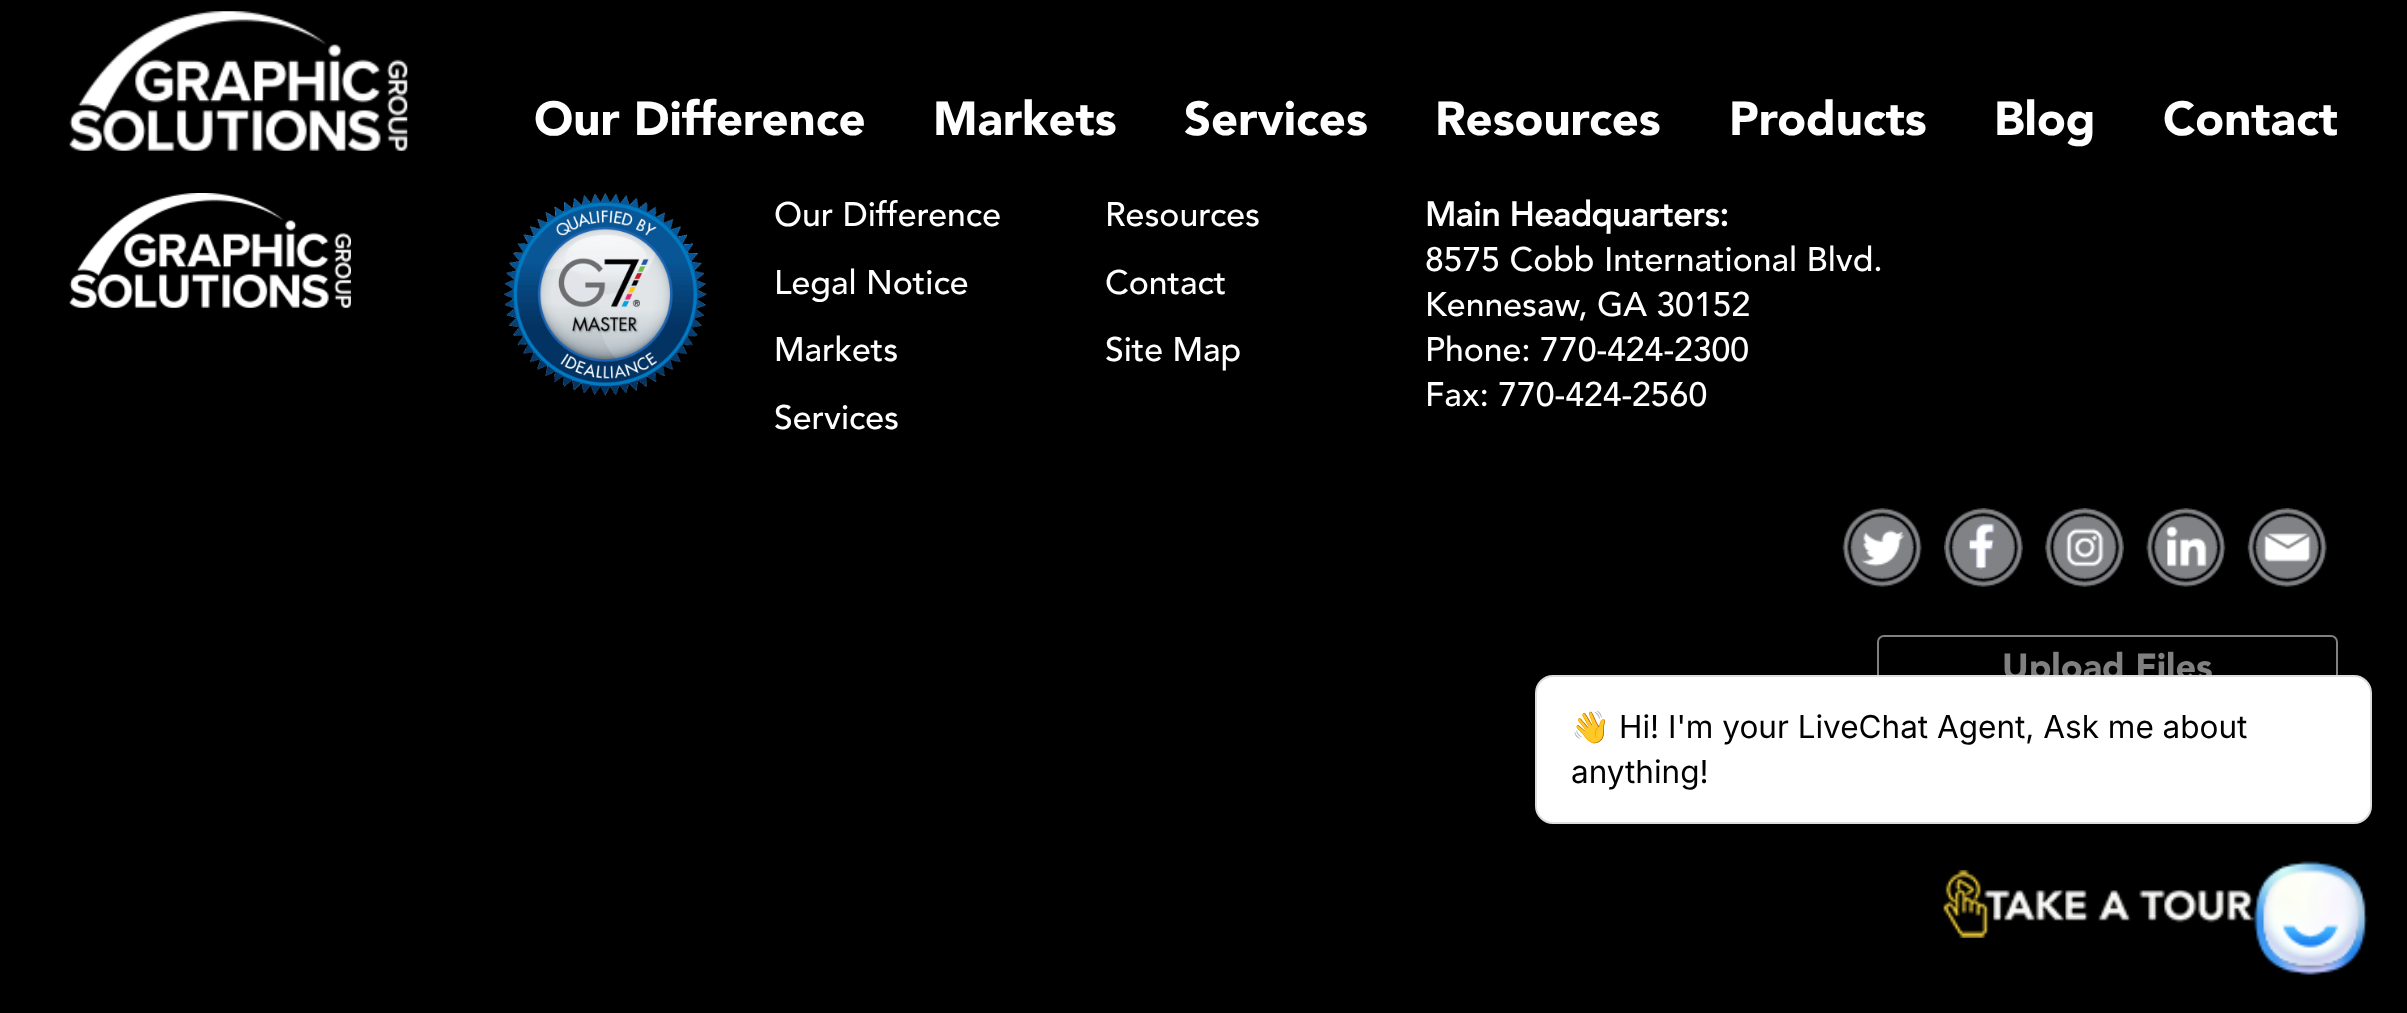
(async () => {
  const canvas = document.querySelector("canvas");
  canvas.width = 2407;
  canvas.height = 1013;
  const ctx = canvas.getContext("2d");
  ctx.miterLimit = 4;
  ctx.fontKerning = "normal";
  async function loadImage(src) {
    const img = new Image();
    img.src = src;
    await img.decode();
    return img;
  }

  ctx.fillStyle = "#000000";
  ctx.fillRect(0, 0, 2407, 1013);
  ctx.drawImage(await loadImage("img/1.png"), 69, 11, 339, 140);
  ctx.drawImage(await loadImage("img/2.png"), 69, 193, 282, 115);
  ctx.drawImage(await loadImage("img/3.png"), 504, 193, 203, 203);
  ctx.drawImage(await loadImage("img/4.png"), 1842, 508, 80, 79);
  ctx.drawImage(await loadImage("img/5.png"), 1944, 508, 79, 79);
  ctx.drawImage(await loadImage("img/6.png"), 2045, 508, 79, 79);
  ctx.drawImage(await loadImage("img/7.png"), 2146, 508, 80, 79);
  ctx.drawImage(await loadImage("img/8.png"), 2247, 508, 80, 79);
  ctx.beginPath();
  ctx.roundRect(1878, 636, 459, 65, 6);
  ctx.strokeStyle = "#808080";
  ctx.lineWidth = 2;
  ctx.stroke();
  ctx.drawImage(await loadImage("img/9.png"), 1943, 870, 312, 68);
  ctx.drawImage(await loadImage("img/10.png"), 2254, 861, 114, 114);
  ctx.font = "900 47.25px Avenir";
  ctx.fillStyle = "#ffffff";
  for (const [text, x, y] of [
    ["Our Difference", 534, 135],
    ["Markets", 933, 135],
    ["Services", 1184, 135],
    ["Resources", 1435, 135],
    ["Products", 1729, 135],
    ["Blog", 1994, 135],
    ["Contact", 2163, 135],
  ]) {
    ctx.fillText(text, x, y);
  }
  ctx.font = "500 33.75px Avenir";
  for (const [text, x, y] of [
    ["Our Difference", 774, 226],
    ["Resources", 1105, 226],
    ["Legal Notice", 774, 294],
    ["Contact", 1105, 294],
    ["Markets", 774, 361],
    ["Site Map", 1105, 361],
    ["Services", 774, 429],
  ]) {
    ctx.fillText(text, x, y);
  }
  ctx.font = "bold 33.75px Avenir";
  ctx.fillText("Main Headquarters:", 1425, 226);
  ctx.font = "500 33.75px Avenir";
  for (const [text, x, y] of [
    ["8575 Cobb International Blvd.", 1425, 271],
    ["Kennesaw, GA 30152", 1425, 316],
    ["Phone: 770-424-2300", 1425, 361],
    ["Fax: 770-424-2560", 1425, 406],
  ]) {
    ctx.fillText(text, x, y);
  }
  ctx.font = "900 36px Avenir";
  ctx.fillStyle = "#808080";
  ctx.fillText("Upload Files", 2002, 679);
  ctx.fillStyle = "#ffffff";
  ctx.beginPath();
  ctx.roundRect(1536, 676, 835, 147, 17);
  ctx.fill();
  ctx.strokeStyle = "#dddddd";
  ctx.stroke();
  ctx.font = "31.5px Noto Color Emoji";
  ctx.fillStyle = "#000000";
  ctx.fillText("👋", 1571, 738);
  ctx.font = "31.5px Inter";
  ctx.fillText("Hi! I'm your LiveChat Agent, Ask me about", 1619, 738);
  ctx.fillText("anything!", 1571, 783);
})();
